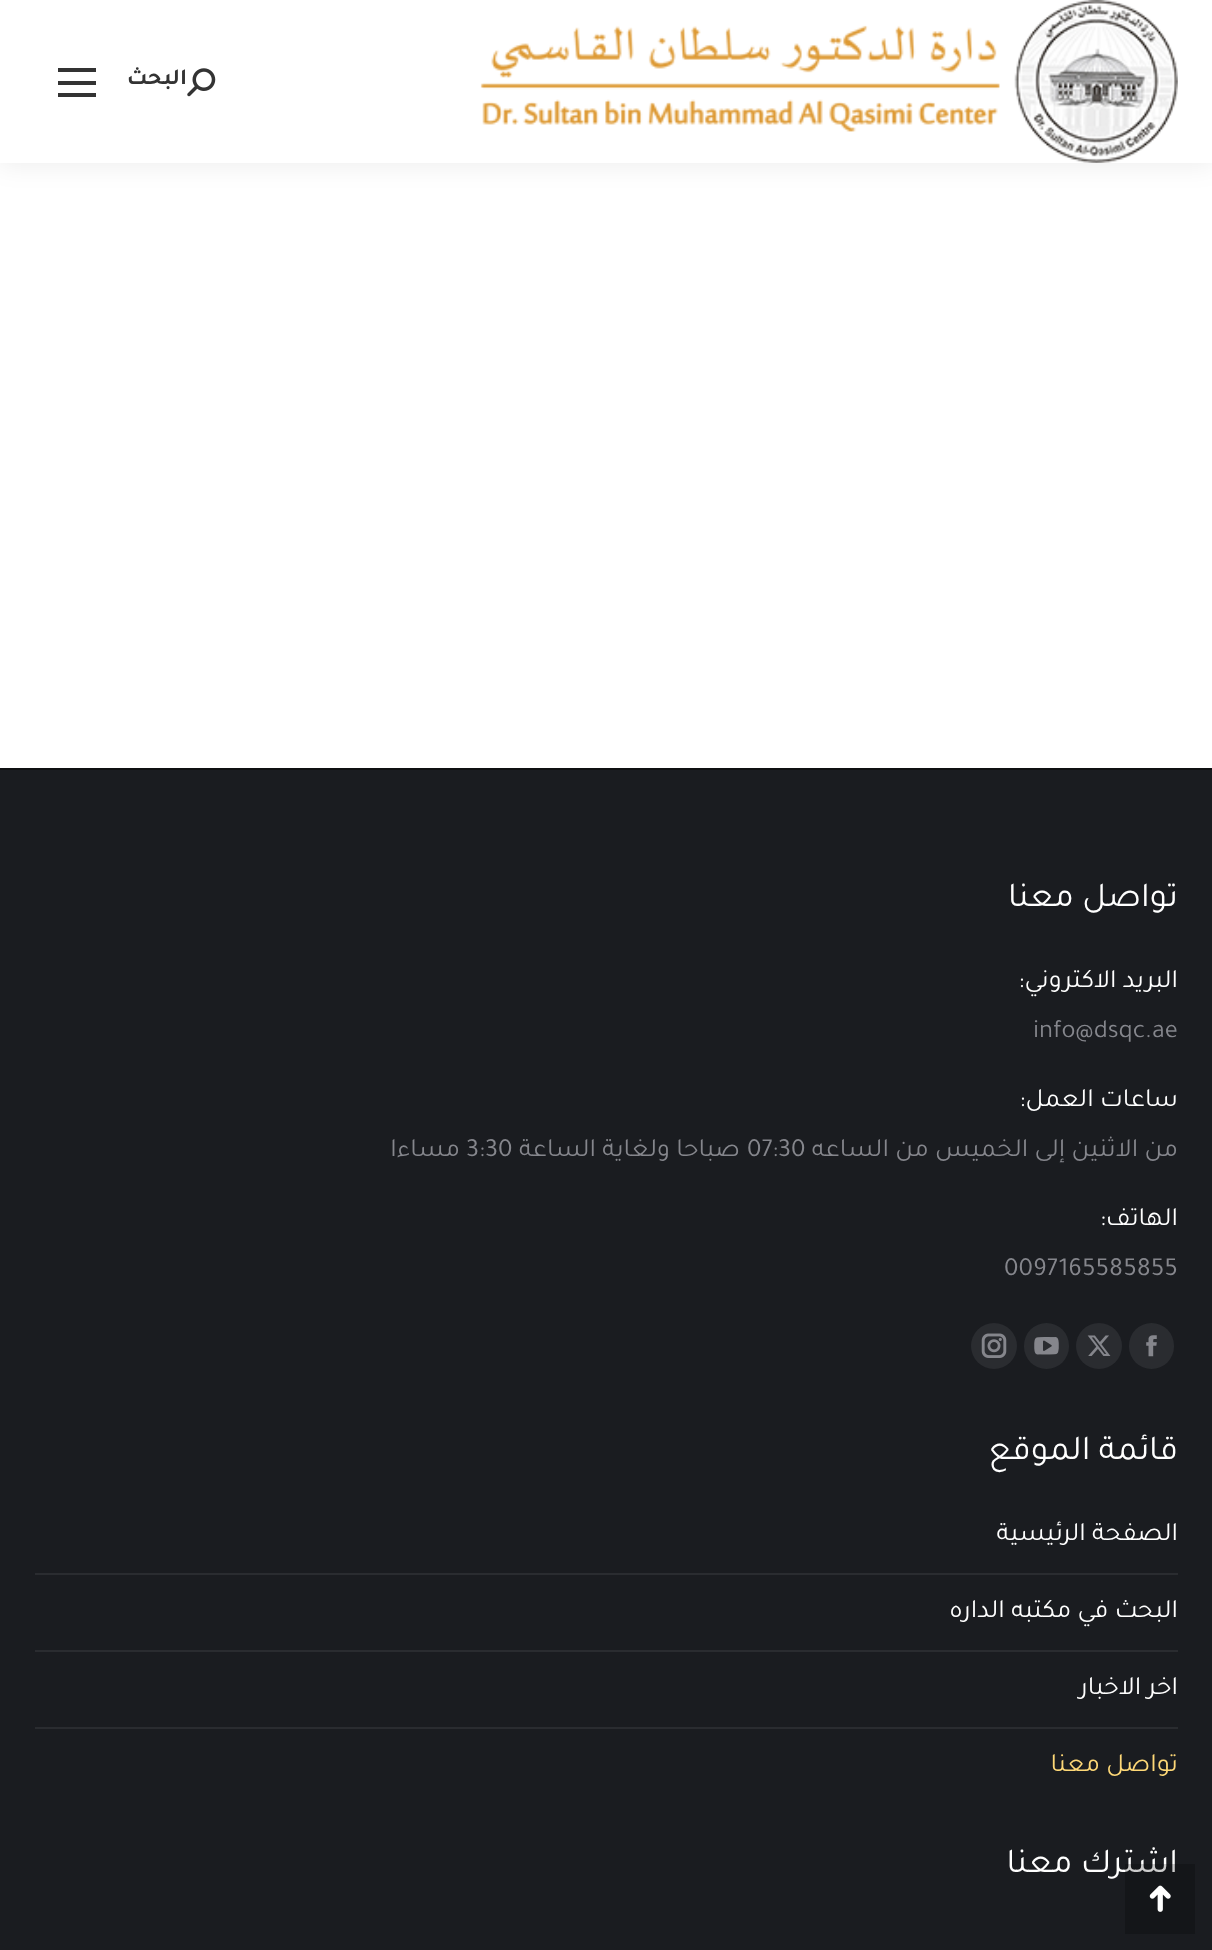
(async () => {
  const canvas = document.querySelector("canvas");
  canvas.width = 1212;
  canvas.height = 1950;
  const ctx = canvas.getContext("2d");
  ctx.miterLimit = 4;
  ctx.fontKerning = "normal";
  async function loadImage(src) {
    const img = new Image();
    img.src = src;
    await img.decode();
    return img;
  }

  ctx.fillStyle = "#ffffff";
  ctx.fillRect(0, 0, 1212, 1950);
  ctx.fillStyle = "rgba(0, 0, 0, 0.07)";
  ctx.filter = "blur(13px)";
  ctx.beginPath();
  ctx.rect(-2, -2, 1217, 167);
  ctx.fill();
  ctx.filter = "none";
  ctx.fillStyle = "#ffffff";
  ctx.fillRect(0, 0, 1212, 163);
  ctx.drawImage(await loadImage("img/1.png"), 480, 0, 698, 163);
  ctx.drawImage(await loadImage("img/2.png"), 187, 68, 29, 29);
  for (const [x, y, w, h, color] of [
    [58, 68, 38, 4, "#333333"],
    [58, 81, 38, 4, "#333333"],
    [58, 93, 38, 4, "#333333"],
    [0, 770, 1212, 1180, "#1a1c20"],
    [0, 768, 1212, 2, "#0f1012"],
  ]) {
    ctx.fillStyle = color;
    ctx.fillRect(x, y, w, h);
  }
  ctx.fillStyle = "#2a2c30";
  ctx.beginPath();
  ctx.roundRect(1129, 1323, 45, 46, 22.5);
  ctx.fill();
  ctx.drawImage(await loadImage("img/3.png"), 1146, 1335, 11, 22);
  ctx.beginPath();
  ctx.arc(1099, 1346, 23, 0, Math.PI * 2);
  ctx.fill();
  ctx.drawImage(await loadImage("img/4.png"), 1087, 1335, 24, 21);
  ctx.beginPath();
  ctx.roundRect(1024, 1323, 45, 46, 22.5);
  ctx.fill();
  ctx.drawImage(await loadImage("img/5.png"), 1034, 1337, 25, 18);
  ctx.beginPath();
  ctx.arc(994, 1346, 23, 0, Math.PI * 2);
  ctx.fill();
  ctx.drawImage(await loadImage("img/6.png"), 981, 1333, 26, 25);
  for (const [x, y, w, h, color] of [
    [35, 1573, 1143, 2, "#2a2c30"],
    [35, 1650, 1143, 2, "#2a2c30"],
    [35, 1727, 1143, 2, "#2a2c30"],
  ]) {
    ctx.fillStyle = color;
    ctx.fillRect(x, y, w, h);
  }
  ctx.direction = "rtl";
  ctx.font = "bold 23px Tajawal";
  ctx.fillStyle = "#333333";
  ctx.fillText("البحث", 187, 84);
  ctx.font = "35px Tajawal";
  ctx.fillStyle = "#ffffff";
  ctx.fillText("تواصل معنا", 1178, 906);
  ctx.font = "26.25px Tajawal";
  ctx.fillText("البريد الاكتروني:", 1178, 987);
  ctx.direction = "ltr";
  ctx.fillStyle = "#85868c";
  ctx.fillText("info@dsqc.ae", 1033, 1037);
  ctx.direction = "rtl";
  ctx.fillStyle = "#ffffff";
  ctx.fillText("ساعات العمل:", 1178, 1106);
  ctx.fillStyle = "#85868c";
  ctx.fillText("من الاثنين إلى الخميس من الساعه", 1178, 1156);
  ctx.direction = "ltr";
  ctx.fillText("07:30", 747, 1156);
  ctx.direction = "rtl";
  ctx.fillText("صباحا ولغاية الساعة", 740, 1156);
  ctx.direction = "ltr";
  ctx.fillText("3:30", 466, 1156);
  ctx.direction = "rtl";
  ctx.fillText("مساءا", 460, 1156);
  ctx.fillStyle = "#ffffff";
  ctx.fillText("الهاتف:", 1178, 1225);
  ctx.direction = "ltr";
  ctx.fillStyle = "#85868c";
  ctx.fillText("0097165585855", 1004, 1275);
  ctx.direction = "rtl";
  ctx.font = "35px Tajawal";
  ctx.fillStyle = "#ffffff";
  ctx.fillText("قائمة الموقع", 1178, 1459);
  ctx.font = "26.25px Tajawal";
  for (const [text, x, y] of [
    ["الصفحة الرئيسية", 1178, 1540],
    ["البحث في مكتبه الداره", 1178, 1617],
    ["اخر الاخبار", 1178, 1694],
  ]) {
    ctx.fillText(text, x, y);
  }
  ctx.fillStyle = "#fed877";
  ctx.fillText("تواصل معنا", 1178, 1771);
  ctx.font = "35px Tajawal";
  ctx.fillStyle = "#ffffff";
  ctx.fillText("اشترك معنا", 1178, 1872);
  ctx.fillStyle = "rgba(0, 0, 0, 0.2)";
  ctx.fillRect(1125, 1864, 70, 70);
  ctx.drawImage(await loadImage("img/7.png"), 1149, 1885, 22, 27);
})();
